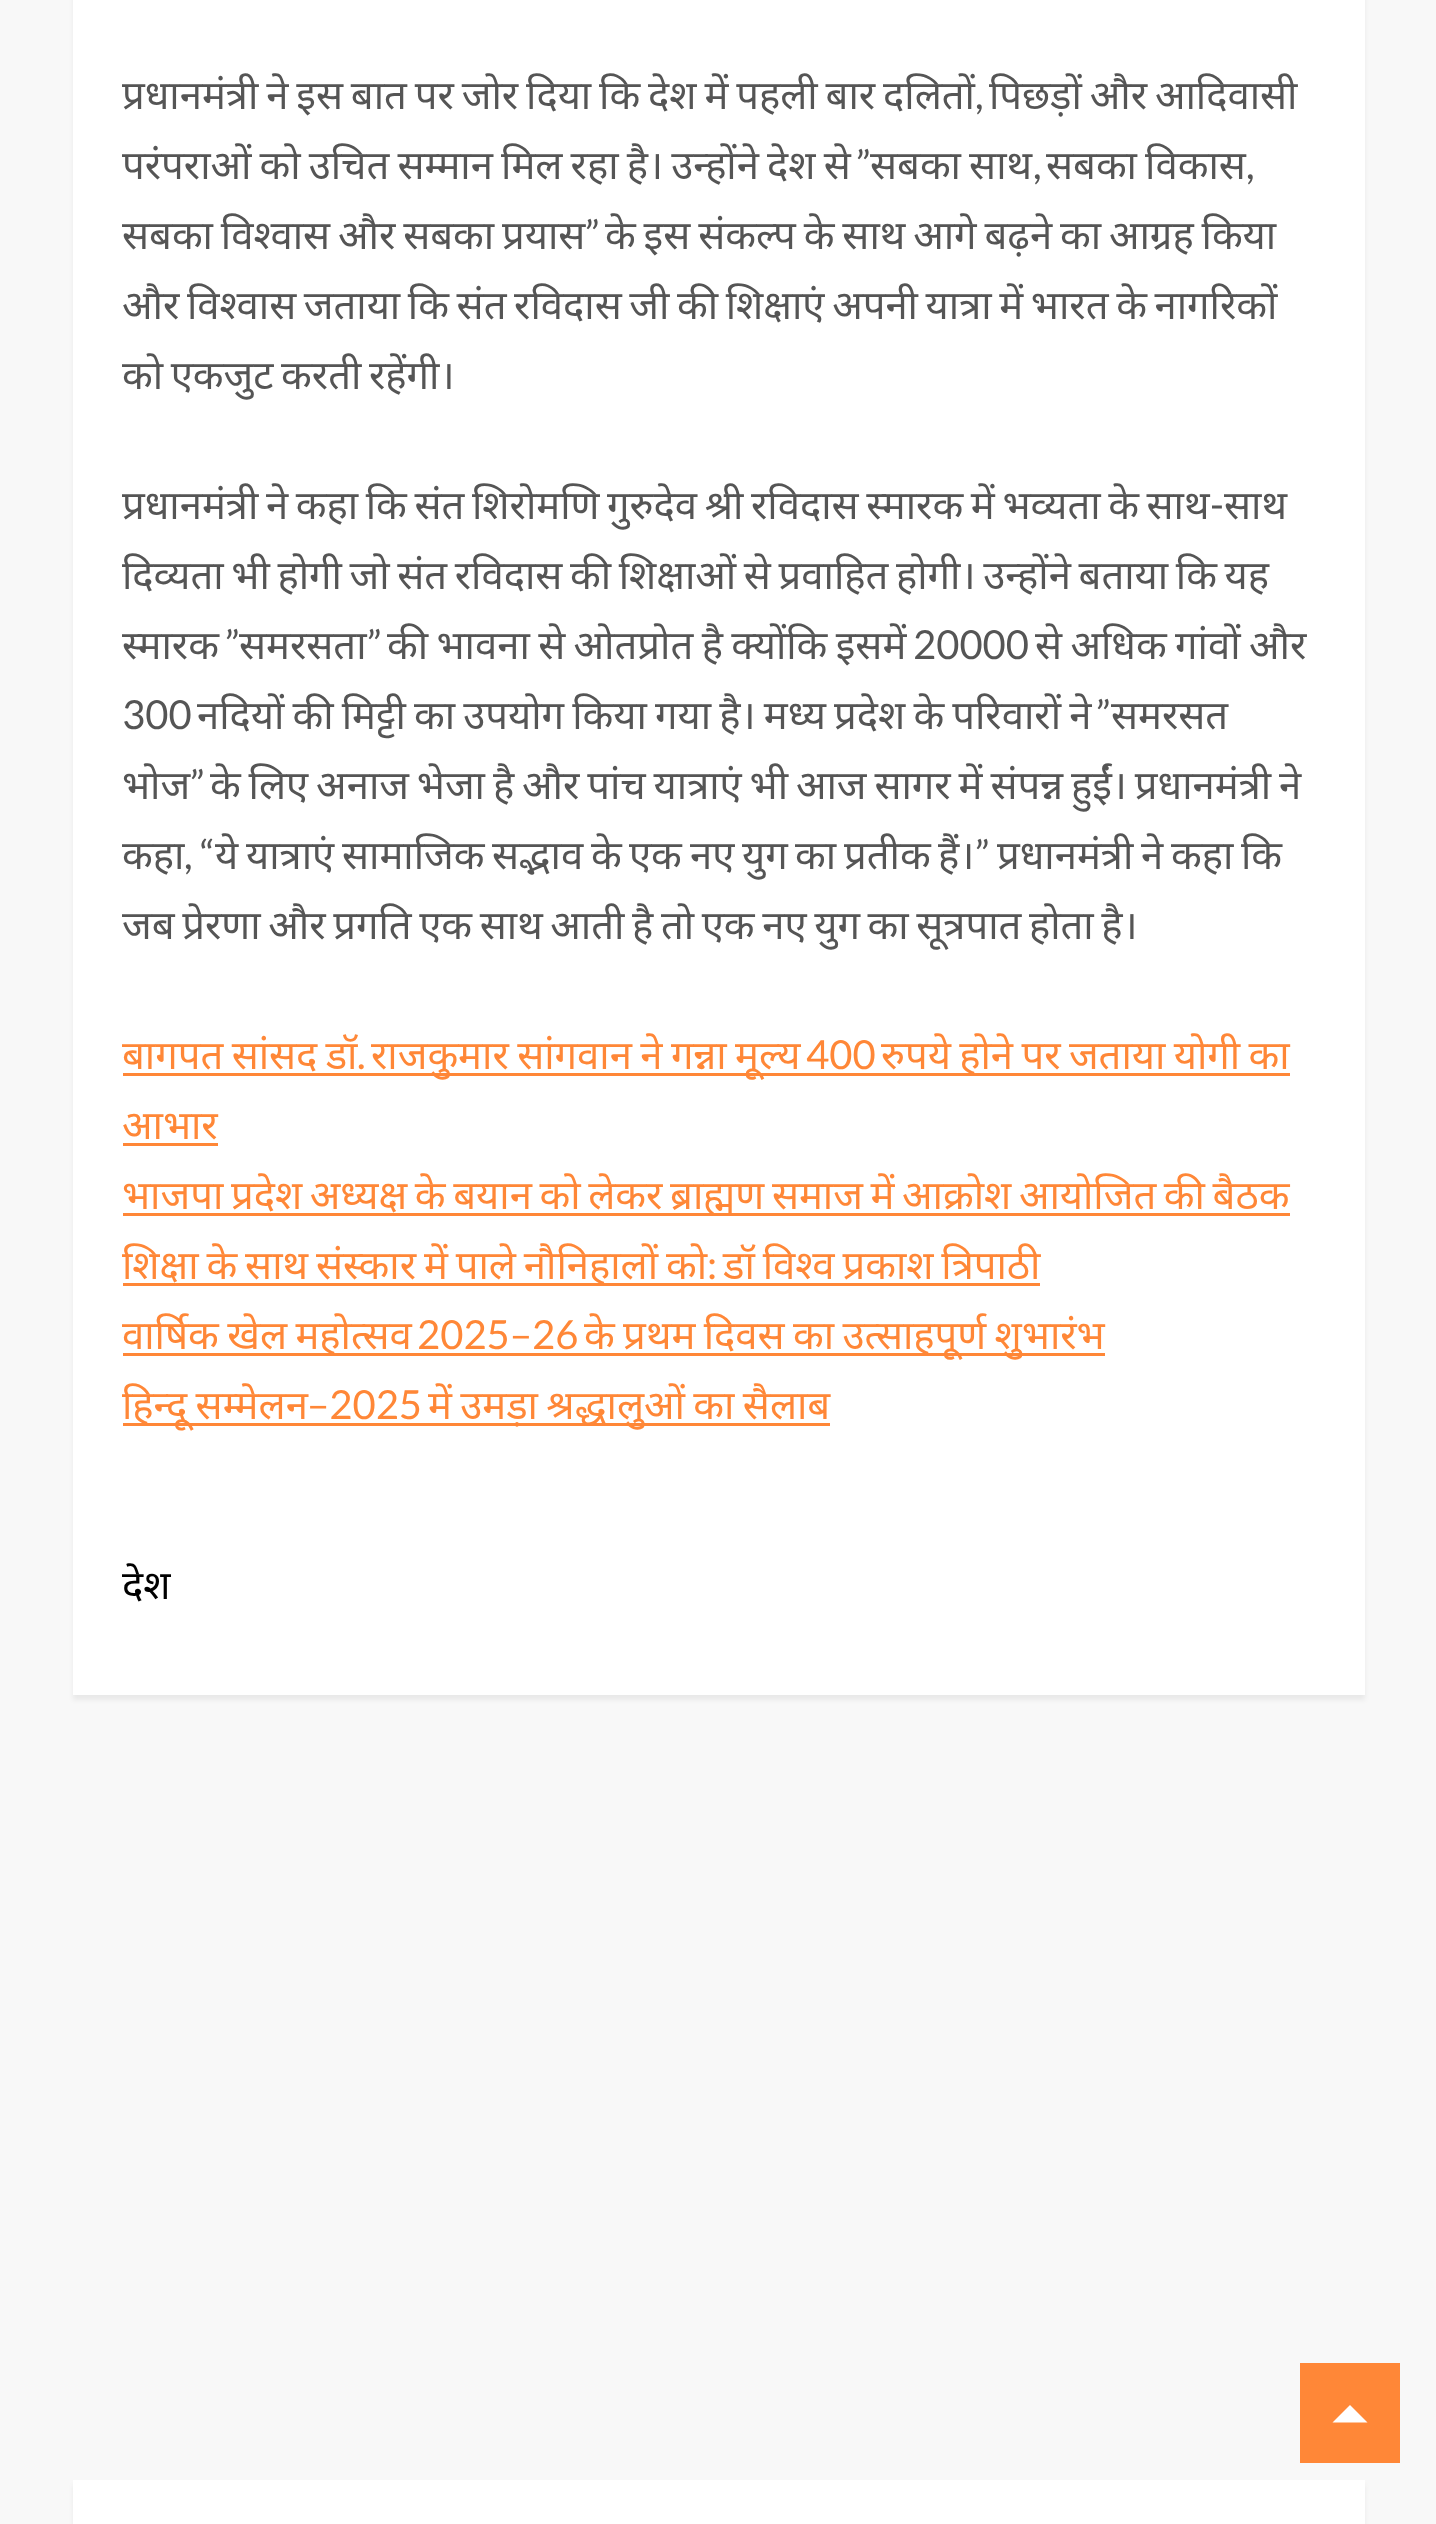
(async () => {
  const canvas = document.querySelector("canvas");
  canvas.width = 1436;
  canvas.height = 2524;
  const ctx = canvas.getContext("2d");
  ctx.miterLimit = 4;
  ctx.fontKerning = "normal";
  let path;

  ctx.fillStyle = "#f8f8f8";
  ctx.fillRect(0, 0, 1436, 2524);
  ctx.fillStyle = "rgba(0, 0, 0, 0.06)";
  ctx.filter = "blur(2.5px)";
  ctx.beginPath();
  ctx.rect(73, -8, 1292, 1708);
  ctx.fill();
  ctx.filter = "none";
  for (const [x, y, w, h, color] of [
    [73, 0, 1292, 1695, "#ffffff"],
    [123, 1073, 1167, 3, "#ff8737"],
    [123, 1143, 95, 3, "#ff8737"],
    [123, 1213, 1167, 3, "#ff8737"],
    [123, 1283, 917, 3, "#ff8737"],
    [123, 1353, 982, 3, "#ff8737"],
    [123, 1423, 707, 3, "#ff8737"],
  ]) {
    ctx.fillStyle = color;
    ctx.fillRect(x, y, w, h);
  }
  ctx.fillStyle = "rgba(0, 0, 0, 0.06)";
  ctx.filter = "blur(2.5px)";
  ctx.beginPath();
  ctx.rect(73, 2485, 1292, 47);
  ctx.fill();
  ctx.filter = "none";
  ctx.fillStyle = "#ffffff";
  ctx.fillRect(73, 2480, 1292, 44);
  ctx.fillStyle = "#ff8737";
  ctx.fillRect(1300, 2363, 100, 100);
  ctx.fillStyle = "#ffffff";
  path = new Path2D("M1367.5 2422.5H1332.5L1350 2405Z");
  ctx.fill(path);
  ctx.wordSpacing = "-2.5px";
  ctx.font = "40px Noto Sans";
  ctx.fillStyle = "#555555";
  ctx.fillText("प्रधानमंत्री ने इस बात पर जोर दिया कि देश में पहली बार दलितों", 122, 109);
  ctx.wordSpacing = "0px";
  ctx.font = "40px Lato";
  ctx.fillText(",", 975, 109);
  ctx.wordSpacing = "-2.5px";
  ctx.font = "40px Noto Sans";
  ctx.fillText("पिछड़ों और आदिवासी", 989, 109);
  ctx.wordSpacing = "-2.25px";
  ctx.fillText("परंपराओं को उचित सम्मान मिल रहा है। उन्होंने देश से", 122, 179);
  ctx.wordSpacing = "0px";
  ctx.font = "40px Lato";
  ctx.fillText("”", 856, 179);
  ctx.wordSpacing = "-2.25px";
  ctx.font = "40px Noto Sans";
  ctx.fillText("सबका साथ", 870, 179);
  ctx.wordSpacing = "0px";
  ctx.font = "40px Lato";
  ctx.fillText(",", 1033, 179);
  ctx.wordSpacing = "-2.25px";
  ctx.font = "40px Noto Sans";
  ctx.fillText("सबका विकास", 1046, 179);
  ctx.wordSpacing = "0px";
  ctx.font = "40px Lato";
  ctx.fillText(",", 1246, 179);
  ctx.wordSpacing = "-2.5px";
  ctx.font = "40px Noto Sans";
  ctx.fillText("सबका विश्वास और सबका प्रयास", 122, 249);
  ctx.wordSpacing = "0px";
  ctx.font = "40px Lato";
  ctx.fillText("”", 585, 249);
  ctx.wordSpacing = "-2.5px";
  ctx.font = "40px Noto Sans";
  ctx.fillText("के इस संकल्प के साथ आगे बढ़ने का आग्रह किया", 605, 249);
  ctx.wordSpacing = "-2.75px";
  for (const [text, x, y] of [
    ["और विश्वास जताया कि संत रविदास जी की शिक्षाएं अपनी यात्रा में भारत के नागरिकों", 122, 319],
    ["को एकजुट करती रहेंगी।", 122, 389],
    ["प्रधानमंत्री ने कहा कि संत शिरोमणि गुरुदेव श्री रविदास स्मारक में भव्यता के साथ", 122, 519],
  ]) {
    ctx.fillText(text, x, y);
  }
  ctx.wordSpacing = "0px";
  ctx.font = "40px Lato";
  ctx.fillText("-", 1210, 519);
  ctx.font = "40px Noto Sans";
  ctx.fillText("साथ", 1224, 519);
  ctx.wordSpacing = "-2.75px";
  ctx.fillText("दिव्यता भी होगी जो संत रविदास की शिक्षाओं से प्रवाहित होगी। उन्होंने बताया कि यह", 122, 589);
  ctx.wordSpacing = "0px";
  ctx.font = "40px Lato";
  ctx.fillText("”", 225, 659);
  ctx.font = "40px Noto Sans";
  ctx.fillText("स्मारक", 122, 659);
  ctx.fillText("समरसता", 239, 659);
  ctx.font = "40px Lato";
  ctx.fillText("”", 367, 659);
  ctx.wordSpacing = "-2px";
  ctx.font = "40px Noto Sans";
  ctx.fillText("की भावना से ओतप्रोत है क्योंकि इसमें", 387, 659);
  ctx.wordSpacing = "0px";
  ctx.font = "40px Lato";
  ctx.fillText("20000", 913, 659);
  ctx.wordSpacing = "-2px";
  ctx.font = "40px Noto Sans";
  ctx.fillText("से अधिक गांवों और", 1035, 659);
  ctx.wordSpacing = "0px";
  ctx.font = "40px Lato";
  ctx.fillText("300", 122, 729);
  ctx.wordSpacing = "-2.25px";
  ctx.font = "40px Noto Sans";
  ctx.fillText("नदियों की मिट्टी का उपयोग किया गया है। मध्य प्रदेश के परिवारों ने", 197, 729);
  ctx.wordSpacing = "0px";
  ctx.font = "40px Lato";
  ctx.fillText("”", 1096, 729);
  ctx.font = "40px Noto Sans";
  ctx.fillText("समरसत", 1111, 729);
  ctx.fillText("भोज", 122, 799);
  ctx.font = "40px Lato";
  ctx.fillText("”", 190, 799);
  ctx.wordSpacing = "-2.5px";
  ctx.font = "40px Noto Sans";
  ctx.fillText("के लिए अनाज भेजा है और पांच यात्राएं भी आज सागर में संपन्न हुईं। प्रधानमंत्री ने", 210, 799);
  ctx.wordSpacing = "0px";
  for (const [text, x, y] of [
    ["यात्राएं", 246, 869],
    ["सामाजिक", 342, 869],
    ["प्रतीक", 844, 869],
    ["हैं।", 938, 869],
    ["प्रधानमंत्री", 997, 869],
    ["ने", 1141, 869],
    ["कि", 1241, 869],
    ["कहा", 122, 869],
  ]) {
    ctx.fillText(text, x, y);
  }
  ctx.font = "40px Lato";
  ctx.fillText(", “", 184, 869);
  ctx.font = "40px Noto Sans";
  for (const [text, x, y] of [
    ["ये", 215, 869],
    ["सद्भाव", 492, 869],
    ["के", 591, 869],
    ["एक", 629, 869],
    ["नए", 690, 869],
    ["युग", 742, 869],
    ["का", 795, 869],
  ]) {
    ctx.fillText(text, x, y);
  }
  ctx.font = "40px Lato";
  ctx.fillText("”", 975, 869);
  ctx.font = "40px Noto Sans";
  ctx.fillText("कहा", 1171, 869);
  ctx.wordSpacing = "-2.75px";
  ctx.fillText("जब प्रेरणा और प्रगति एक साथ आती है तो एक नए युग का सूत्रपात होता है।", 122, 939);
  ctx.wordSpacing = "-2px";
  ctx.fillStyle = "#ff8737";
  ctx.fillText("बागपत सांसद डॉ", 122, 1069);
  ctx.wordSpacing = "0px";
  ctx.font = "40px Lato";
  ctx.fillText(".", 357, 1069);
  ctx.wordSpacing = "-2px";
  ctx.font = "40px Noto Sans";
  ctx.fillText("राजकुमार सांगवान ने गन्ना मूल्य", 371, 1069);
  ctx.wordSpacing = "0px";
  ctx.font = "40px Lato";
  ctx.fillText("400", 806, 1069);
  ctx.wordSpacing = "-2px";
  ctx.font = "40px Noto Sans";
  ctx.fillText("रुपये होने पर जताया योगी का", 881, 1069);
  ctx.wordSpacing = "0px";
  ctx.fillText("आभार", 122, 1139);
  ctx.wordSpacing = "-2.75px";
  ctx.fillText("भाजपा प्रदेश अध्यक्ष के बयान को लेकर ब्राह्मण समाज में आक्रोश आयोजित की बैठक", 122, 1209);
  ctx.wordSpacing = "-2.5px";
  ctx.fillText("शिक्षा के साथ संस्कार में पाले नौनिहालों को", 122, 1279);
  ctx.wordSpacing = "0px";
  ctx.font = "40px Lato";
  ctx.fillText(":", 707, 1279);
  ctx.wordSpacing = "-2.5px";
  ctx.font = "40px Noto Sans";
  ctx.fillText("डॉ विश्व प्रकाश त्रिपाठी", 723, 1279);
  ctx.wordSpacing = "-2px";
  ctx.fillText("वार्षिक खेल महोत्सव", 122, 1349);
  ctx.wordSpacing = "0px";
  ctx.font = "40px Lato";
  ctx.fillText("2025–26", 417, 1349);
  ctx.wordSpacing = "-2px";
  ctx.font = "40px Noto Sans";
  ctx.fillText("के प्रथम दिवस का उत्साहपूर्ण शुभारंभ", 584, 1349);
  ctx.fillText("हिन्दू सम्मेलन", 122, 1419);
  ctx.wordSpacing = "0px";
  ctx.font = "40px Lato";
  ctx.fillText("–2025", 307, 1419);
  ctx.wordSpacing = "-2px";
  ctx.font = "40px Noto Sans";
  ctx.fillText("में उमड़ा श्रद्धालुओं का सैलाब", 428, 1419);
  ctx.wordSpacing = "0px";
  ctx.fillStyle = "#000000";
  ctx.fillText("देश", 122, 1599);
})();
